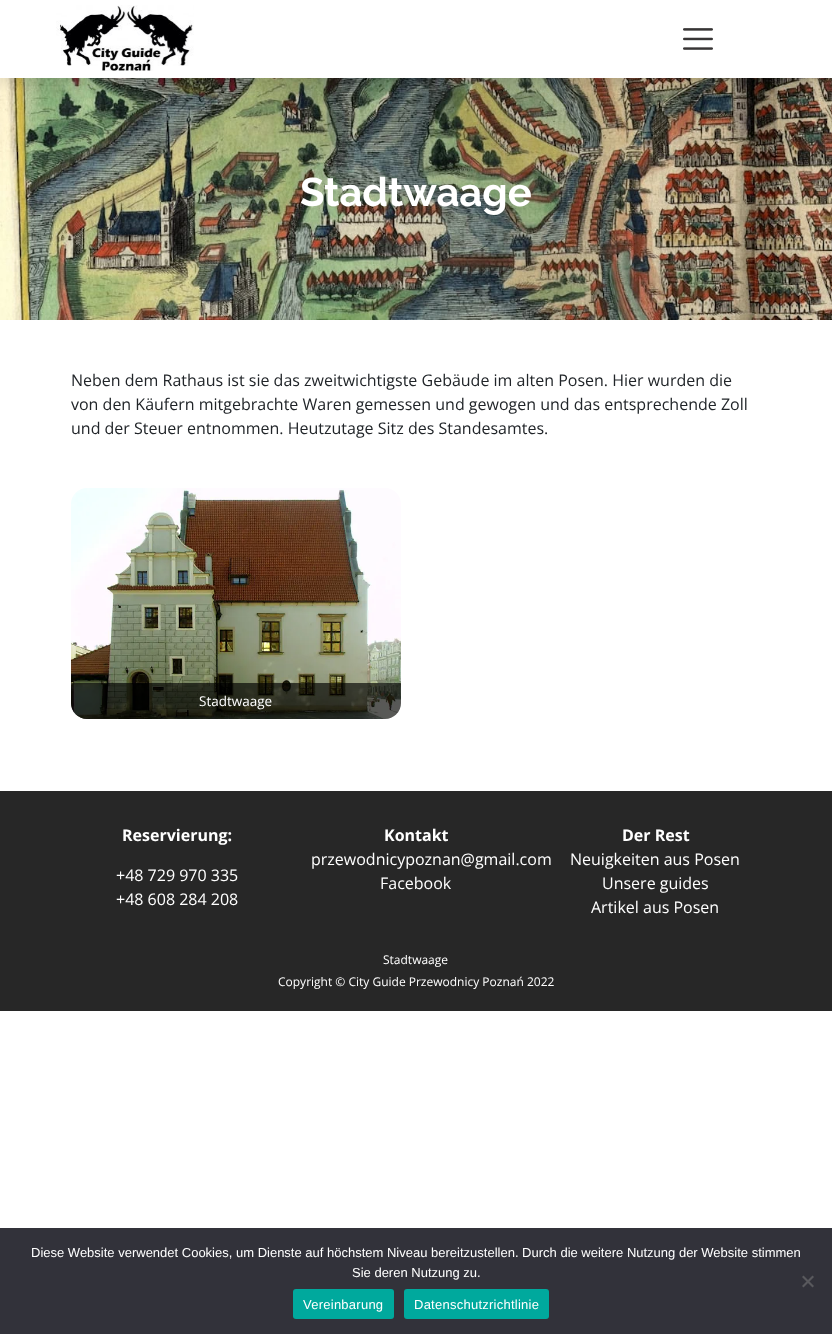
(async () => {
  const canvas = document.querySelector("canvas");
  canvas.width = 832;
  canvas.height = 1334;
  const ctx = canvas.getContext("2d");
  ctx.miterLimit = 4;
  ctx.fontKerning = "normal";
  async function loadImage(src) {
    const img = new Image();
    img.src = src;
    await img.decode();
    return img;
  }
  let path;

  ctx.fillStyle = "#ffffff";
  ctx.fillRect(0, 0, 832, 1334);
  ctx.drawImage(await loadImage("img/3.png"), 0, 78, 832, 242);
  ctx.fillStyle = "rgba(0, 0, 0, 0.15)";
  ctx.filter = "blur(7.5px)";
  ctx.beginPath();
  ctx.rect(0, 5, 832, 78);
  ctx.fill();
  ctx.filter = "none";
  ctx.fillStyle = "#ffffff";
  ctx.fillRect(0, 0, 832, 78);
  ctx.drawImage(await loadImage("img/1.png"), 56, 5, 138, 66);
  ctx.drawImage(await loadImage("img/2.png"), 683, 28, 30, 22);
  ctx.drawImage(await loadImage("img/4.png"), 71, 488, 330, 231);
  ctx.fillStyle = "rgba(0, 0, 0, 0.65)";
  ctx.beginPath();
  ctx.roundRect(71, 683, 330, 36, [0, 0, 16, 16]);
  ctx.fill();
  ctx.fillStyle = "#272727";
  ctx.fillRect(0, 791, 832, 220);
  ctx.fillStyle = "#32323a";
  ctx.fillRect(0, 1228, 832, 106);
  ctx.fillStyle = "#59595d";
  path = new Path2D("M812.5 1275.5L814 1277L803.5 1287.5L802 1286Z");
  ctx.fill(path);
  path = new Path2D("M802 1277L803.5 1275.5L814 1286L812.5 1287.5Z");
  ctx.fill(path);
  ctx.fillStyle = "#00a99d";
  ctx.beginPath();
  ctx.roundRect(293, 1289, 101, 30, 3);
  ctx.fill();
  ctx.beginPath();
  ctx.roundRect(404, 1289, 145, 30, 3);
  ctx.fill();
  ctx.font = "bold 40px Raleway";
  ctx.fillStyle = "#ffffff";
  ctx.fillText("Stadtwaage", 300, 206);
  ctx.font = "16px Open Sans";
  ctx.fillStyle = "#212529";
  for (const [text, x, y] of [
    ["Neben dem Rathaus ist sie das zweitwichtigste Gebäude im alten Posen. Hier wurden die", 71, 386],
    ["von den Käufern mitgebrachte Waren gemessen und gewogen und das entsprechende Zoll", 71, 410],
    ["und der Steuer entnommen. Heutzutage Sitz des Standesamtes.", 71, 434],
  ]) {
    ctx.fillText(text, x, y);
  }
  ctx.font = "13.5px Open Sans";
  ctx.fillStyle = "#ffffff";
  ctx.fillText("Stadtwaage", 199, 706);
  ctx.font = "bold 16px Open Sans";
  ctx.fillText("Reservierung:", 122, 841);
  ctx.font = "16px Open Sans";
  ctx.fillText("+48 729 970 335", 116, 881);
  ctx.fillText("+48 608 284 208", 116, 905);
  ctx.font = "bold 16px Open Sans";
  ctx.fillText("Kontakt", 384, 841);
  ctx.font = "16px Open Sans";
  ctx.fillText("przewodnicypoznan@gmail.com", 311, 865);
  ctx.fillText("Facebook", 380, 889);
  ctx.font = "bold 16px Open Sans";
  ctx.fillText("Der Rest", 622, 841);
  ctx.font = "16px Open Sans";
  for (const [text, x, y] of [
    ["Neuigkeiten aus Posen", 570, 865],
    ["Unsere guides", 602, 889],
    ["Artikel aus Posen", 591, 913],
  ]) {
    ctx.fillText(text, x, y);
  }
  ctx.font = "12px Open Sans";
  ctx.fillText("Stadtwaage", 383, 964);
  ctx.fillText("Copyright © City Guide Przewodnicy Poznań 2022", 278, 986);
  ctx.font = "13px Liberation Sans";
  ctx.fillText("Diese Website verwendet Cookies, um Dienste auf höchstem Niveau bereitzustellen. Durch die weitere Nutzung der Website stimmen", 31, 1257);
  ctx.fillText("Sie deren Nutzung zu.", 352, 1277);
  ctx.letterSpacing = "0.25px";
  ctx.fillText("Vereinbarung", 303, 1309);
  ctx.fillText("Datenschutzrichtlinie", 414, 1309);
})();
